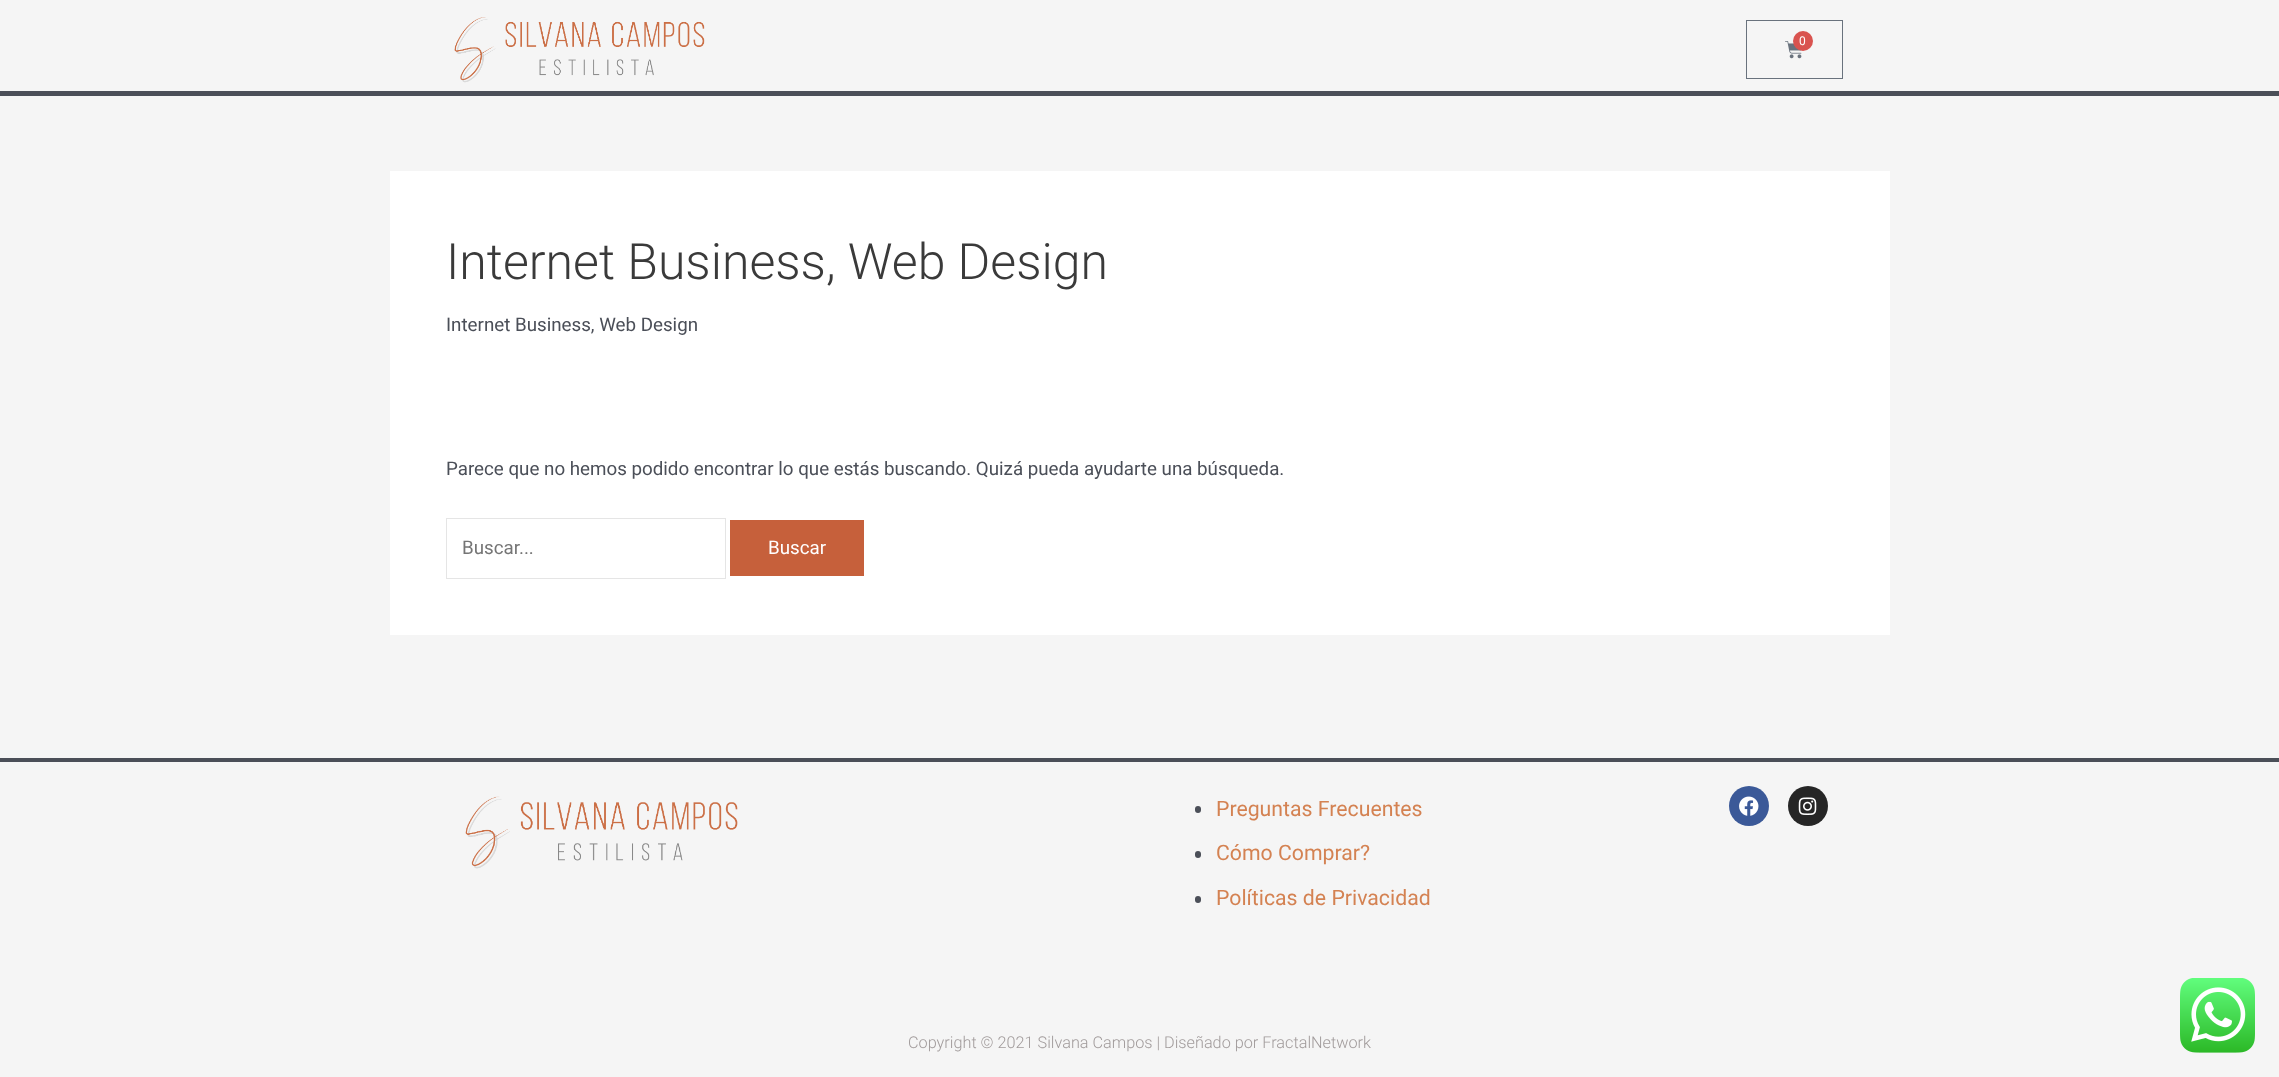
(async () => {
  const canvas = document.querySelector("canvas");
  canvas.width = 2279;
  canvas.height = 1077;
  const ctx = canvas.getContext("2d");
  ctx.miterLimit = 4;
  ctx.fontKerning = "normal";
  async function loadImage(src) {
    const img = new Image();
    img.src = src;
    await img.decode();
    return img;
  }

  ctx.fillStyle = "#f5f5f5";
  ctx.fillRect(0, 0, 2279, 1077);
  ctx.fillStyle = "#4b4f58";
  ctx.fillRect(0, 91, 2279, 5);
  ctx.drawImage(await loadImage("img/1.png"), 454, 17, 251, 66);
  ctx.strokeStyle = "#69727d";
  ctx.strokeRect(1746.5, 20.5, 96, 58);
  ctx.drawImage(await loadImage("img/2.png"), 1785, 41, 17, 18);
  ctx.fillStyle = "#d9534f";
  ctx.beginPath();
  ctx.arc(1803, 41, 10, 0, Math.PI * 2);
  ctx.fill();
  ctx.fillStyle = "#ffffff";
  ctx.fillRect(390, 171, 1500, 464);
  ctx.strokeStyle = "#e5e5e5";
  ctx.strokeRect(446.5, 518.5, 279, 60);
  ctx.fillStyle = "#c6603b";
  ctx.fillRect(730, 520, 134, 56);
  ctx.fillStyle = "#4b4f58";
  ctx.fillRect(0, 758, 2279, 4);
  ctx.drawImage(await loadImage("img/3.png"), 465, 796, 273, 73);
  ctx.beginPath();
  ctx.roundRect(1195, 806, 6, 7, 3);
  ctx.fill();
  ctx.beginPath();
  ctx.roundRect(1195, 851, 6, 7, 3);
  ctx.fill();
  ctx.beginPath();
  ctx.roundRect(1195, 896, 6, 7, 3);
  ctx.fill();
  ctx.fillStyle = "#3b5998";
  ctx.beginPath();
  ctx.arc(1749, 806, 20, 0, Math.PI * 2);
  ctx.fill();
  ctx.drawImage(await loadImage("img/4.png"), 1739, 796, 20, 20);
  ctx.fillStyle = "#262626";
  ctx.beginPath();
  ctx.arc(1808, 806, 20, 0, Math.PI * 2);
  ctx.fill();
  ctx.drawImage(await loadImage("img/5.png"), 1798, 797, 19, 18);
  ctx.drawImage(await loadImage("img/6.png"), 2180, 978, 75, 75);
  ctx.font = "12px Roboto";
  ctx.fillStyle = "#ffffff";
  ctx.fillText("0", 1799, 45);
  ctx.font = "300 50px Roboto";
  ctx.fillStyle = "#3a3a3a";
  ctx.fillText("Internet Business, Web Design", 446, 279);
  ctx.font = "18.75px Roboto";
  ctx.fillStyle = "#4b4f58";
  ctx.fillText("Internet Business, Web Design", 446, 331);
  ctx.fillText("Parece que no hemos podido encontrar lo que estás buscando. Quizá pueda ayudarte una búsqueda.", 446, 475);
  ctx.fillStyle = "#757575";
  ctx.fillText("Buscar...", 462, 554);
  ctx.fillStyle = "#ffffff";
  ctx.fillText("Buscar", 768, 554);
  ctx.font = "21.25px Roboto";
  ctx.fillStyle = "#d48252";
  for (const [text, x, y] of [
    ["Preguntas Frecuentes", 1216, 816],
    ["Cómo Comprar?", 1216, 860],
    ["Políticas de Privacidad", 1216, 905],
  ]) {
    ctx.fillText(text, x, y);
  }
  ctx.font = "300 16.25px Roboto";
  ctx.fillStyle = "#a19b9b";
  ctx.fillText("Copyright © 2021 Silvana Campos | Diseñado por FractalNetwork", 908, 1048);
})();
